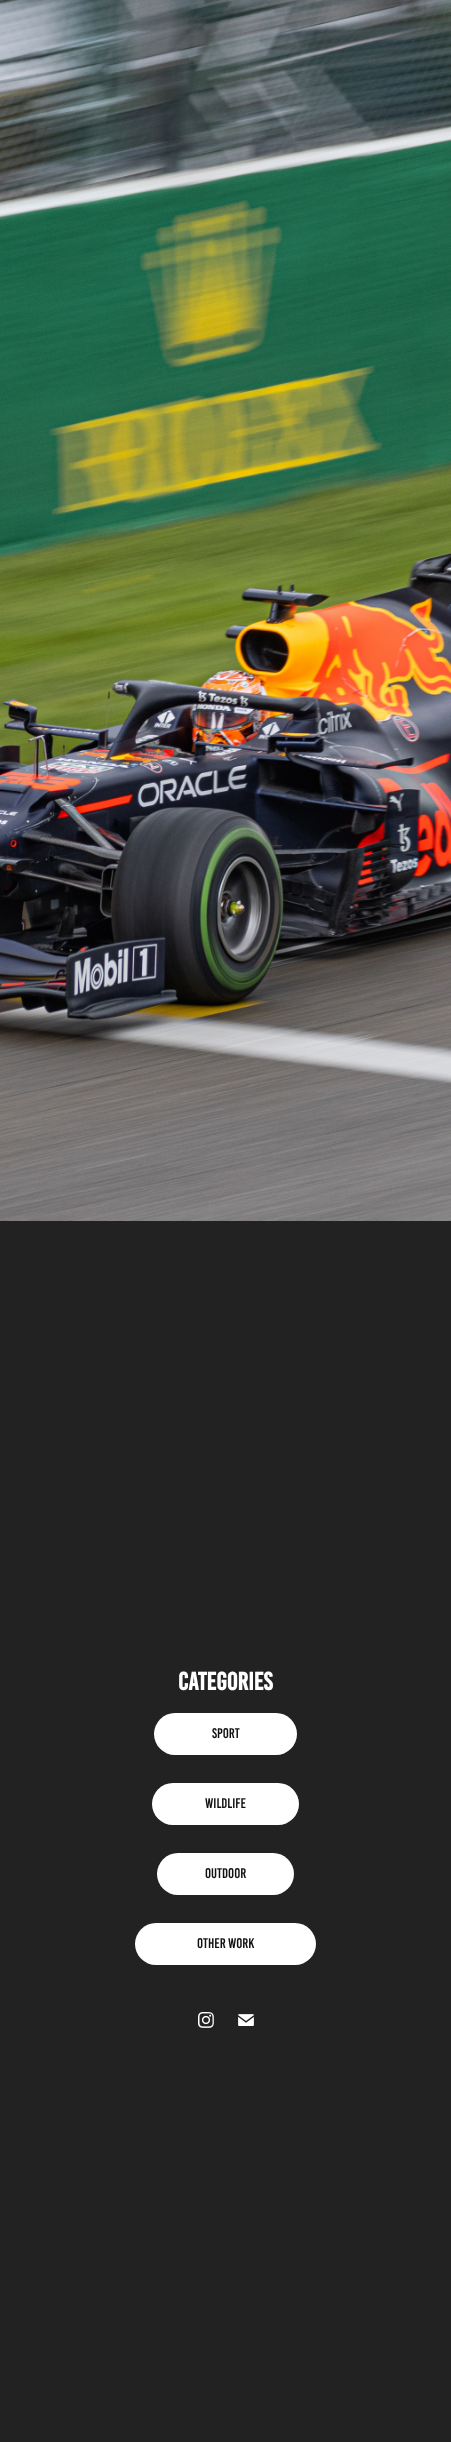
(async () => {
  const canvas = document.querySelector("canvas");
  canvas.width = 451;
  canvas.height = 2442;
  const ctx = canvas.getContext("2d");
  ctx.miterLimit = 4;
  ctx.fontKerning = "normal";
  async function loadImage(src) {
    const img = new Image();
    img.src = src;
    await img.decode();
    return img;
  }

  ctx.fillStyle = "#222222";
  ctx.fillRect(0, 0, 451, 2442);
  ctx.drawImage(await loadImage("img/1.png"), 0, 0, 451, 1221);
  ctx.fillStyle = "#ffffff";
  ctx.beginPath();
  ctx.roundRect(154, 1713, 143, 42, 21);
  ctx.fill();
  ctx.beginPath();
  ctx.roundRect(152, 1783, 147, 42, 21);
  ctx.fill();
  ctx.beginPath();
  ctx.roundRect(157, 1853, 137, 42, 21);
  ctx.fill();
  ctx.beginPath();
  ctx.roundRect(135, 1923, 181, 42, 21);
  ctx.fill();
  ctx.drawImage(await loadImage("img/2.png"), 198, 2012, 16, 16);
  ctx.drawImage(await loadImage("img/3.png"), 238, 2014, 16, 12);
  ctx.font = "bold 25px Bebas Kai";
  ctx.fillText("Categories", 178, 1690);
  ctx.font = "14px Bebas Kai";
  ctx.fillStyle = "#111111";
  for (const [text, x, y] of [
    ["Sport", 212, 1738],
    ["Wildlife", 205, 1808],
    ["Outdoor", 205, 1878],
    ["Other work", 197, 1948],
  ]) {
    ctx.fillText(text, x, y);
  }
})();
